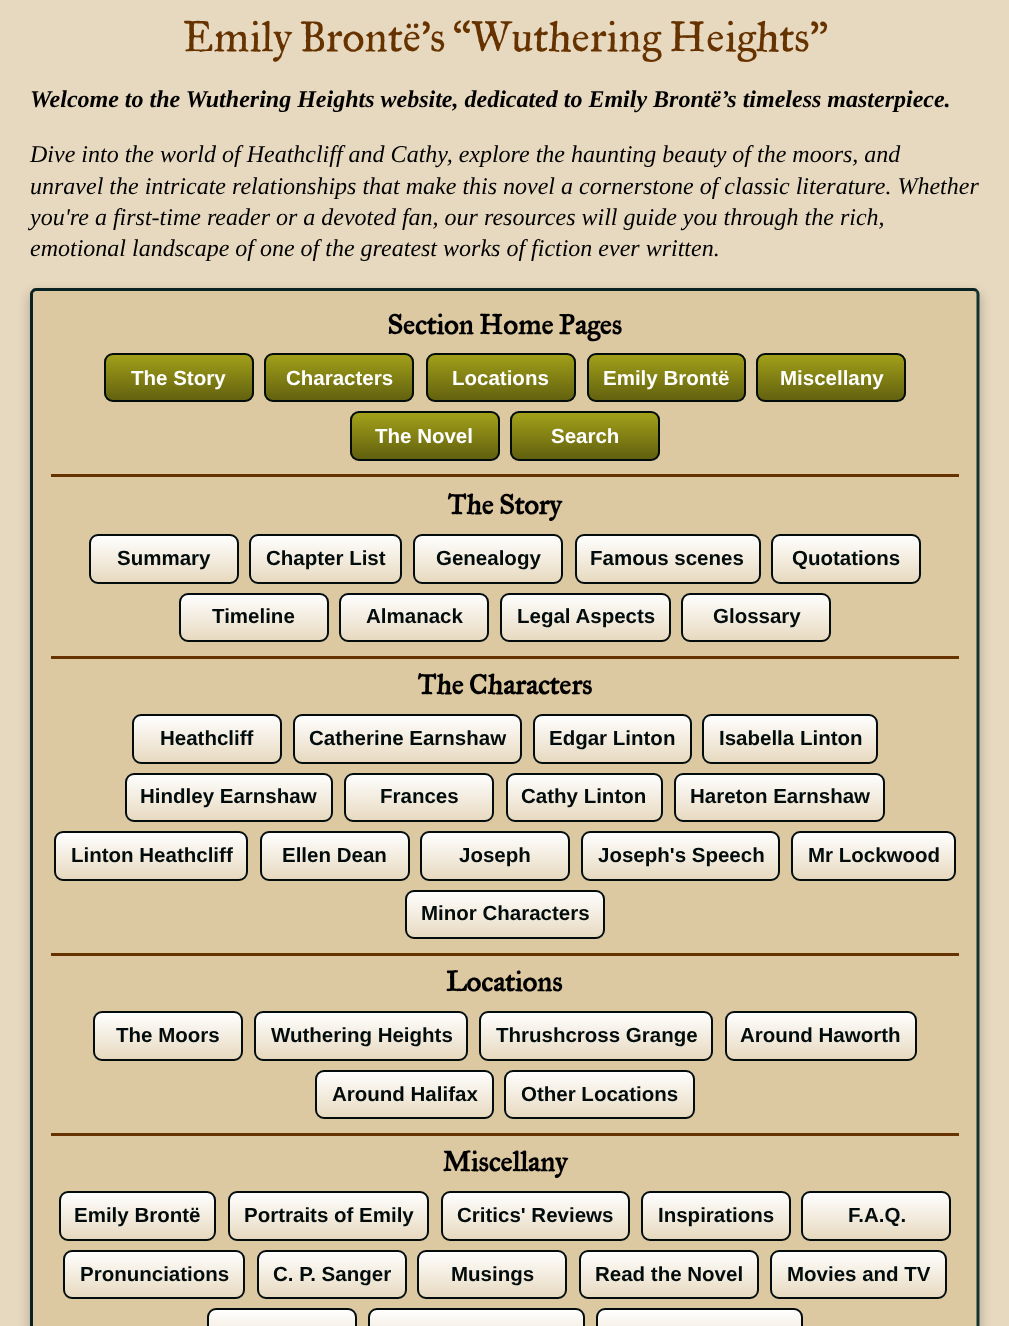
(async () => {
  const canvas = document.querySelector("canvas");
  canvas.width = 1009;
  canvas.height = 1326;
  const ctx = canvas.getContext("2d");
  ctx.miterLimit = 4;
  ctx.fontKerning = "normal";
  let gradient, path;

  ctx.fillStyle = "#e7d9bf";
  ctx.fillRect(0, 0, 1009, 1326);
  ctx.save();
  path = new Path2D("M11 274H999V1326H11ZM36 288H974C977.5 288 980 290.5 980 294V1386C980 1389.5 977.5 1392 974 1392H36C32.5 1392 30 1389.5 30 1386V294C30 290.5 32.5 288 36 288Z");
  ctx.clip(path, "evenodd");
  ctx.fillStyle = "rgba(0, 0, 0, 0.25)";
  ctx.filter = "blur(6px)";
  ctx.beginPath();
  ctx.roundRect(30, 293, 950, 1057, 6);
  ctx.fill();
  ctx.filter = "none";
  ctx.restore();
  ctx.fillStyle = "rgba(217, 195, 154, 0.8)";
  ctx.beginPath();
  ctx.roundRect(30, 288, 950, 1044, 6);
  ctx.fill();
  path = new Path2D("M976.5 291C977.5 291.5 978 293 978 294V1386C978 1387 977.5 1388.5 976.5 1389C976 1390 974.5 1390.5 973.5 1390.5H36C35 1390.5 33.5 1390 33 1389");
  ctx.strokeStyle = "#0f3333";
  ctx.lineWidth = 3;
  ctx.stroke(path);
  path = new Path2D("M33 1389C32 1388.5 31.5 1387 31.5 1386V294C31.5 293 32 291.5 33 291C33.5 290 35 289.5 36 289.5H973.5C974.5 289.5 976 290 976.5 291");
  ctx.strokeStyle = "#0a2222";
  ctx.stroke(path);
  ctx.fillStyle = "#663300";
  ctx.fillRect(51, 474, 908, 3);
  ctx.save();
  ctx.beginPath();
  ctx.roundRect(104, 353, 150, 49, 9);
  ctx.clip();
  gradient = ctx.createLinearGradient(179, 401, 179, 354);
  gradient.addColorStop(0, "#61600f");
  gradient.addColorStop(1, "#a3a119");
  ctx.fillStyle = gradient;
  ctx.fillRect(104, 354, 150, 47);
  ctx.restore();
  ctx.beginPath();
  ctx.roundRect(105, 354, 148, 47, 8);
  ctx.strokeStyle = "#030c0c";
  ctx.lineWidth = 2;
  ctx.stroke();
  ctx.save();
  ctx.beginPath();
  ctx.roundRect(264, 353, 150, 49, 9);
  ctx.clip();
  gradient = ctx.createLinearGradient(339, 401, 339, 354);
  gradient.addColorStop(0, "#61600f");
  gradient.addColorStop(1, "#a3a119");
  ctx.fillStyle = gradient;
  ctx.fillRect(264, 354, 150, 47);
  ctx.restore();
  ctx.beginPath();
  ctx.roundRect(265, 354, 148, 47, 8);
  ctx.stroke();
  ctx.save();
  ctx.beginPath();
  ctx.roundRect(426, 353, 150, 49, 9);
  ctx.clip();
  gradient = ctx.createLinearGradient(501, 401, 501, 354);
  gradient.addColorStop(0, "#61600f");
  gradient.addColorStop(1, "#a3a119");
  ctx.fillStyle = gradient;
  ctx.fillRect(426, 354, 150, 47);
  ctx.restore();
  ctx.beginPath();
  ctx.roundRect(427, 354, 148, 47, 8);
  ctx.stroke();
  ctx.save();
  ctx.beginPath();
  ctx.roundRect(587, 353, 159, 49, 9);
  ctx.clip();
  gradient = ctx.createLinearGradient(666, 401, 666, 354);
  gradient.addColorStop(0, "#61600f");
  gradient.addColorStop(1, "#a3a119");
  ctx.fillStyle = gradient;
  ctx.fillRect(587, 354, 159, 47);
  ctx.restore();
  ctx.beginPath();
  ctx.roundRect(588, 354, 157, 47, 8);
  ctx.stroke();
  ctx.save();
  ctx.beginPath();
  ctx.roundRect(756, 353, 150, 49, 9);
  ctx.clip();
  gradient = ctx.createLinearGradient(831, 401, 831, 354);
  gradient.addColorStop(0, "#61600f");
  gradient.addColorStop(1, "#a3a119");
  ctx.fillStyle = gradient;
  ctx.fillRect(756, 354, 150, 47);
  ctx.restore();
  ctx.beginPath();
  ctx.roundRect(757, 354, 148, 47, 8);
  ctx.stroke();
  ctx.save();
  ctx.beginPath();
  ctx.roundRect(350, 411, 150, 50, 9);
  ctx.clip();
  gradient = ctx.createLinearGradient(425, 459, 425, 413);
  gradient.addColorStop(0, "#61600f");
  gradient.addColorStop(1, "#a3a119");
  ctx.fillStyle = gradient;
  ctx.fillRect(350, 413, 150, 46);
  ctx.restore();
  ctx.beginPath();
  ctx.roundRect(351, 412, 148, 48, 8);
  ctx.stroke();
  ctx.save();
  ctx.beginPath();
  ctx.roundRect(510, 411, 150, 50, 9);
  ctx.clip();
  gradient = ctx.createLinearGradient(585, 459, 585, 413);
  gradient.addColorStop(0, "#61600f");
  gradient.addColorStop(1, "#a3a119");
  ctx.fillStyle = gradient;
  ctx.fillRect(510, 413, 150, 46);
  ctx.restore();
  ctx.beginPath();
  ctx.roundRect(511, 412, 148, 48, 8);
  ctx.stroke();
  ctx.fillRect(51, 656, 908, 3);
  ctx.save();
  ctx.beginPath();
  ctx.roundRect(89, 534, 150, 50, 9);
  ctx.clip();
  gradient = ctx.createLinearGradient(164, 582, 164, 536);
  gradient.addColorStop(0, "#e7d9bf");
  gradient.addColorStop(1, "#ffffff");
  ctx.fillStyle = gradient;
  ctx.fillRect(89, 536, 150, 46);
  ctx.restore();
  ctx.beginPath();
  ctx.roundRect(90, 535, 148, 48, 8);
  ctx.stroke();
  ctx.save();
  ctx.beginPath();
  ctx.roundRect(249, 534, 153, 50, 9);
  ctx.clip();
  gradient = ctx.createLinearGradient(326, 582, 326, 536);
  gradient.addColorStop(0, "#e7d9bf");
  gradient.addColorStop(1, "#ffffff");
  ctx.fillStyle = gradient;
  ctx.fillRect(249, 536, 153, 46);
  ctx.restore();
  ctx.beginPath();
  ctx.roundRect(250, 535, 151, 48, 8);
  ctx.stroke();
  ctx.save();
  ctx.beginPath();
  ctx.roundRect(413, 534, 150, 50, 9);
  ctx.clip();
  gradient = ctx.createLinearGradient(488, 582, 488, 536);
  gradient.addColorStop(0, "#e7d9bf");
  gradient.addColorStop(1, "#ffffff");
  ctx.fillStyle = gradient;
  ctx.fillRect(413, 536, 150, 46);
  ctx.restore();
  ctx.beginPath();
  ctx.roundRect(414, 535, 148, 48, 8);
  ctx.stroke();
  ctx.save();
  ctx.beginPath();
  ctx.roundRect(575, 534, 186, 50, 9);
  ctx.clip();
  gradient = ctx.createLinearGradient(668, 582, 668, 536);
  gradient.addColorStop(0, "#e7d9bf");
  gradient.addColorStop(1, "#ffffff");
  ctx.fillStyle = gradient;
  ctx.fillRect(575, 536, 186, 46);
  ctx.restore();
  ctx.beginPath();
  ctx.roundRect(576, 535, 184, 48, 8);
  ctx.stroke();
  ctx.save();
  ctx.beginPath();
  ctx.roundRect(771, 534, 150, 50, 9);
  ctx.clip();
  gradient = ctx.createLinearGradient(846, 582, 846, 536);
  gradient.addColorStop(0, "#e7d9bf");
  gradient.addColorStop(1, "#ffffff");
  ctx.fillStyle = gradient;
  ctx.fillRect(771, 536, 150, 46);
  ctx.restore();
  ctx.beginPath();
  ctx.roundRect(772, 535, 148, 48, 8);
  ctx.stroke();
  ctx.save();
  ctx.beginPath();
  ctx.roundRect(179, 593, 150, 49, 9);
  ctx.clip();
  gradient = ctx.createLinearGradient(254, 641, 254, 594);
  gradient.addColorStop(0, "#e7d9bf");
  gradient.addColorStop(1, "#ffffff");
  ctx.fillStyle = gradient;
  ctx.fillRect(179, 594, 150, 47);
  ctx.restore();
  ctx.beginPath();
  ctx.roundRect(180, 594, 148, 47, 8);
  ctx.stroke();
  ctx.save();
  ctx.beginPath();
  ctx.roundRect(339, 593, 150, 49, 9);
  ctx.clip();
  gradient = ctx.createLinearGradient(414, 641, 414, 594);
  gradient.addColorStop(0, "#e7d9bf");
  gradient.addColorStop(1, "#ffffff");
  ctx.fillStyle = gradient;
  ctx.fillRect(339, 594, 150, 47);
  ctx.restore();
  ctx.beginPath();
  ctx.roundRect(340, 594, 148, 47, 8);
  ctx.stroke();
  ctx.save();
  ctx.beginPath();
  ctx.roundRect(500, 593, 171, 49, 9);
  ctx.clip();
  gradient = ctx.createLinearGradient(585, 641, 585, 594);
  gradient.addColorStop(0, "#e7d9bf");
  gradient.addColorStop(1, "#ffffff");
  ctx.fillStyle = gradient;
  ctx.fillRect(500, 594, 171, 47);
  ctx.restore();
  ctx.beginPath();
  ctx.roundRect(501, 594, 169, 47, 8);
  ctx.stroke();
  ctx.save();
  ctx.beginPath();
  ctx.roundRect(681, 593, 150, 49, 9);
  ctx.clip();
  gradient = ctx.createLinearGradient(756, 641, 756, 594);
  gradient.addColorStop(0, "#e7d9bf");
  gradient.addColorStop(1, "#ffffff");
  ctx.fillStyle = gradient;
  ctx.fillRect(681, 594, 150, 47);
  ctx.restore();
  ctx.beginPath();
  ctx.roundRect(682, 594, 148, 47, 8);
  ctx.stroke();
  ctx.fillRect(51, 953, 908, 3);
  ctx.save();
  ctx.beginPath();
  ctx.roundRect(132, 714, 150, 50, 9);
  ctx.clip();
  gradient = ctx.createLinearGradient(207, 762, 207, 716);
  gradient.addColorStop(0, "#e7d9bf");
  gradient.addColorStop(1, "#ffffff");
  ctx.fillStyle = gradient;
  ctx.fillRect(132, 716, 150, 46);
  ctx.restore();
  ctx.beginPath();
  ctx.roundRect(133, 715, 148, 48, 8);
  ctx.stroke();
  ctx.save();
  ctx.beginPath();
  ctx.roundRect(293, 714, 229, 50, 9);
  ctx.clip();
  gradient = ctx.createLinearGradient(407, 762, 407, 716);
  gradient.addColorStop(0, "#e7d9bf");
  gradient.addColorStop(1, "#ffffff");
  ctx.fillStyle = gradient;
  ctx.fillRect(293, 716, 229, 46);
  ctx.restore();
  ctx.beginPath();
  ctx.roundRect(294, 715, 227, 48, 8);
  ctx.stroke();
  ctx.save();
  ctx.beginPath();
  ctx.roundRect(533, 714, 159, 50, 9);
  ctx.clip();
  gradient = ctx.createLinearGradient(612, 762, 612, 716);
  gradient.addColorStop(0, "#e7d9bf");
  gradient.addColorStop(1, "#ffffff");
  ctx.fillStyle = gradient;
  ctx.fillRect(533, 716, 159, 46);
  ctx.restore();
  ctx.beginPath();
  ctx.roundRect(534, 715, 157, 48, 8);
  ctx.stroke();
  ctx.save();
  ctx.beginPath();
  ctx.roundRect(702, 714, 176, 50, 9);
  ctx.clip();
  gradient = ctx.createLinearGradient(790, 762, 790, 716);
  gradient.addColorStop(0, "#e7d9bf");
  gradient.addColorStop(1, "#ffffff");
  ctx.fillStyle = gradient;
  ctx.fillRect(702, 716, 176, 46);
  ctx.restore();
  ctx.beginPath();
  ctx.roundRect(703, 715, 174, 48, 8);
  ctx.stroke();
  ctx.save();
  ctx.beginPath();
  ctx.roundRect(125, 773, 208, 49, 9);
  ctx.clip();
  gradient = ctx.createLinearGradient(229, 821, 229, 774);
  gradient.addColorStop(0, "#e7d9bf");
  gradient.addColorStop(1, "#ffffff");
  ctx.fillStyle = gradient;
  ctx.fillRect(125, 774, 208, 47);
  ctx.restore();
  ctx.beginPath();
  ctx.roundRect(126, 774, 206, 47, 8);
  ctx.stroke();
  ctx.save();
  ctx.beginPath();
  ctx.roundRect(344, 773, 150, 49, 9);
  ctx.clip();
  gradient = ctx.createLinearGradient(419, 821, 419, 774);
  gradient.addColorStop(0, "#e7d9bf");
  gradient.addColorStop(1, "#ffffff");
  ctx.fillStyle = gradient;
  ctx.fillRect(344, 774, 150, 47);
  ctx.restore();
  ctx.beginPath();
  ctx.roundRect(345, 774, 148, 47, 8);
  ctx.stroke();
  ctx.save();
  ctx.beginPath();
  ctx.roundRect(506, 773, 157, 49, 9);
  ctx.clip();
  gradient = ctx.createLinearGradient(584, 821, 584, 774);
  gradient.addColorStop(0, "#e7d9bf");
  gradient.addColorStop(1, "#ffffff");
  ctx.fillStyle = gradient;
  ctx.fillRect(506, 774, 157, 47);
  ctx.restore();
  ctx.beginPath();
  ctx.roundRect(507, 774, 155, 47, 8);
  ctx.stroke();
  ctx.save();
  ctx.beginPath();
  ctx.roundRect(674, 773, 211, 49, 9);
  ctx.clip();
  gradient = ctx.createLinearGradient(779, 821, 779, 774);
  gradient.addColorStop(0, "#e7d9bf");
  gradient.addColorStop(1, "#ffffff");
  ctx.fillStyle = gradient;
  ctx.fillRect(674, 774, 211, 47);
  ctx.restore();
  ctx.beginPath();
  ctx.roundRect(675, 774, 209, 47, 8);
  ctx.stroke();
  ctx.save();
  ctx.beginPath();
  ctx.roundRect(54, 831, 194, 50, 9);
  ctx.clip();
  gradient = ctx.createLinearGradient(151, 879, 151, 833);
  gradient.addColorStop(0, "#e7d9bf");
  gradient.addColorStop(1, "#ffffff");
  ctx.fillStyle = gradient;
  ctx.fillRect(54, 833, 194, 46);
  ctx.restore();
  ctx.beginPath();
  ctx.roundRect(55, 832, 192, 48, 8);
  ctx.stroke();
  ctx.save();
  ctx.beginPath();
  ctx.roundRect(260, 831, 150, 50, 9);
  ctx.clip();
  gradient = ctx.createLinearGradient(335, 879, 335, 833);
  gradient.addColorStop(0, "#e7d9bf");
  gradient.addColorStop(1, "#ffffff");
  ctx.fillStyle = gradient;
  ctx.fillRect(260, 833, 150, 46);
  ctx.restore();
  ctx.beginPath();
  ctx.roundRect(261, 832, 148, 48, 8);
  ctx.stroke();
  ctx.save();
  ctx.beginPath();
  ctx.roundRect(420, 831, 150, 50, 9);
  ctx.clip();
  gradient = ctx.createLinearGradient(495, 879, 495, 833);
  gradient.addColorStop(0, "#e7d9bf");
  gradient.addColorStop(1, "#ffffff");
  ctx.fillStyle = gradient;
  ctx.fillRect(420, 833, 150, 46);
  ctx.restore();
  ctx.beginPath();
  ctx.roundRect(421, 832, 148, 48, 8);
  ctx.stroke();
  ctx.save();
  ctx.beginPath();
  ctx.roundRect(581, 831, 199, 50, 9);
  ctx.clip();
  gradient = ctx.createLinearGradient(680, 879, 680, 833);
  gradient.addColorStop(0, "#e7d9bf");
  gradient.addColorStop(1, "#ffffff");
  ctx.fillStyle = gradient;
  ctx.fillRect(581, 833, 199, 46);
  ctx.restore();
  ctx.beginPath();
  ctx.roundRect(582, 832, 197, 48, 8);
  ctx.stroke();
  ctx.save();
  ctx.beginPath();
  ctx.roundRect(791, 831, 165, 50, 9);
  ctx.clip();
  gradient = ctx.createLinearGradient(873, 879, 873, 833);
  gradient.addColorStop(0, "#e7d9bf");
  gradient.addColorStop(1, "#ffffff");
  ctx.fillStyle = gradient;
  ctx.fillRect(791, 833, 165, 46);
  ctx.restore();
  ctx.beginPath();
  ctx.roundRect(792, 832, 163, 48, 8);
  ctx.stroke();
  ctx.save();
  ctx.beginPath();
  ctx.roundRect(405, 890, 200, 49, 9);
  ctx.clip();
  gradient = ctx.createLinearGradient(505, 938, 505, 891);
  gradient.addColorStop(0, "#e7d9bf");
  gradient.addColorStop(1, "#ffffff");
  ctx.fillStyle = gradient;
  ctx.fillRect(405, 891, 200, 47);
  ctx.restore();
  ctx.beginPath();
  ctx.roundRect(406, 891, 198, 47, 8);
  ctx.stroke();
  ctx.fillRect(51, 1133, 908, 3);
  ctx.save();
  ctx.beginPath();
  ctx.roundRect(93, 1011, 150, 50, 9);
  ctx.clip();
  gradient = ctx.createLinearGradient(168, 1059, 168, 1013);
  gradient.addColorStop(0, "#e7d9bf");
  gradient.addColorStop(1, "#ffffff");
  ctx.fillStyle = gradient;
  ctx.fillRect(93, 1013, 150, 46);
  ctx.restore();
  ctx.beginPath();
  ctx.roundRect(94, 1012, 148, 48, 8);
  ctx.stroke();
  ctx.save();
  ctx.beginPath();
  ctx.roundRect(254, 1011, 214, 50, 9);
  ctx.clip();
  gradient = ctx.createLinearGradient(361, 1059, 361, 1013);
  gradient.addColorStop(0, "#e7d9bf");
  gradient.addColorStop(1, "#ffffff");
  ctx.fillStyle = gradient;
  ctx.fillRect(254, 1013, 214, 46);
  ctx.restore();
  ctx.beginPath();
  ctx.roundRect(255, 1012, 212, 48, 8);
  ctx.stroke();
  ctx.save();
  ctx.beginPath();
  ctx.roundRect(479, 1011, 234, 50, 9);
  ctx.clip();
  gradient = ctx.createLinearGradient(596, 1059, 596, 1013);
  gradient.addColorStop(0, "#e7d9bf");
  gradient.addColorStop(1, "#ffffff");
  ctx.fillStyle = gradient;
  ctx.fillRect(479, 1013, 234, 46);
  ctx.restore();
  ctx.beginPath();
  ctx.roundRect(480, 1012, 232, 48, 8);
  ctx.stroke();
  ctx.save();
  ctx.beginPath();
  ctx.roundRect(725, 1011, 192, 50, 9);
  ctx.clip();
  gradient = ctx.createLinearGradient(821, 1059, 821, 1013);
  gradient.addColorStop(0, "#e7d9bf");
  gradient.addColorStop(1, "#ffffff");
  ctx.fillStyle = gradient;
  ctx.fillRect(725, 1013, 192, 46);
  ctx.restore();
  ctx.beginPath();
  ctx.roundRect(726, 1012, 190, 48, 8);
  ctx.stroke();
  ctx.save();
  ctx.beginPath();
  ctx.roundRect(315, 1070, 179, 49, 9);
  ctx.clip();
  gradient = ctx.createLinearGradient(404, 1118, 404, 1071);
  gradient.addColorStop(0, "#e7d9bf");
  gradient.addColorStop(1, "#ffffff");
  ctx.fillStyle = gradient;
  ctx.fillRect(315, 1071, 179, 47);
  ctx.restore();
  ctx.beginPath();
  ctx.roundRect(316, 1071, 177, 47, 8);
  ctx.stroke();
  ctx.save();
  ctx.beginPath();
  ctx.roundRect(504, 1070, 191, 49, 9);
  ctx.clip();
  gradient = ctx.createLinearGradient(599, 1118, 599, 1071);
  gradient.addColorStop(0, "#e7d9bf");
  gradient.addColorStop(1, "#ffffff");
  ctx.fillStyle = gradient;
  ctx.fillRect(504, 1071, 191, 47);
  ctx.restore();
  ctx.beginPath();
  ctx.roundRect(505, 1071, 189, 47, 8);
  ctx.stroke();
  ctx.save();
  ctx.beginPath();
  ctx.roundRect(59, 1191, 157, 50, 9);
  ctx.clip();
  gradient = ctx.createLinearGradient(137, 1239, 137, 1193);
  gradient.addColorStop(0, "#e7d9bf");
  gradient.addColorStop(1, "#ffffff");
  ctx.fillStyle = gradient;
  ctx.fillRect(59, 1193, 157, 46);
  ctx.restore();
  ctx.beginPath();
  ctx.roundRect(60, 1192, 155, 48, 8);
  ctx.stroke();
  ctx.save();
  ctx.beginPath();
  ctx.roundRect(228, 1191, 201, 50, 9);
  ctx.clip();
  gradient = ctx.createLinearGradient(329, 1239, 329, 1193);
  gradient.addColorStop(0, "#e7d9bf");
  gradient.addColorStop(1, "#ffffff");
  ctx.fillStyle = gradient;
  ctx.fillRect(228, 1193, 201, 46);
  ctx.restore();
  ctx.beginPath();
  ctx.roundRect(229, 1192, 199, 48, 8);
  ctx.stroke();
  ctx.save();
  ctx.beginPath();
  ctx.roundRect(441, 1191, 189, 50, 9);
  ctx.clip();
  gradient = ctx.createLinearGradient(536, 1239, 536, 1193);
  gradient.addColorStop(0, "#e7d9bf");
  gradient.addColorStop(1, "#ffffff");
  ctx.fillStyle = gradient;
  ctx.fillRect(441, 1193, 189, 46);
  ctx.restore();
  ctx.beginPath();
  ctx.roundRect(442, 1192, 187, 48, 8);
  ctx.stroke();
  ctx.save();
  ctx.beginPath();
  ctx.roundRect(641, 1191, 150, 50, 9);
  ctx.clip();
  gradient = ctx.createLinearGradient(716, 1239, 716, 1193);
  gradient.addColorStop(0, "#e7d9bf");
  gradient.addColorStop(1, "#ffffff");
  ctx.fillStyle = gradient;
  ctx.fillRect(641, 1193, 150, 46);
  ctx.restore();
  ctx.beginPath();
  ctx.roundRect(642, 1192, 148, 48, 8);
  ctx.stroke();
  ctx.save();
  ctx.beginPath();
  ctx.roundRect(801, 1191, 150, 50, 9);
  ctx.clip();
  gradient = ctx.createLinearGradient(876, 1239, 876, 1193);
  gradient.addColorStop(0, "#e7d9bf");
  gradient.addColorStop(1, "#ffffff");
  ctx.fillStyle = gradient;
  ctx.fillRect(801, 1193, 150, 46);
  ctx.restore();
  ctx.beginPath();
  ctx.roundRect(802, 1192, 148, 48, 8);
  ctx.stroke();
  ctx.save();
  ctx.beginPath();
  ctx.roundRect(63, 1250, 182, 49, 9);
  ctx.clip();
  gradient = ctx.createLinearGradient(154, 1298, 154, 1251);
  gradient.addColorStop(0, "#e7d9bf");
  gradient.addColorStop(1, "#ffffff");
  ctx.fillStyle = gradient;
  ctx.fillRect(63, 1251, 182, 47);
  ctx.restore();
  ctx.beginPath();
  ctx.roundRect(64, 1251, 180, 47, 8);
  ctx.stroke();
  ctx.save();
  ctx.beginPath();
  ctx.roundRect(257, 1250, 150, 49, 9);
  ctx.clip();
  gradient = ctx.createLinearGradient(332, 1298, 332, 1251);
  gradient.addColorStop(0, "#e7d9bf");
  gradient.addColorStop(1, "#ffffff");
  ctx.fillStyle = gradient;
  ctx.fillRect(257, 1251, 150, 47);
  ctx.restore();
  ctx.beginPath();
  ctx.roundRect(258, 1251, 148, 47, 8);
  ctx.stroke();
  ctx.save();
  ctx.beginPath();
  ctx.roundRect(417, 1250, 150, 49, 9);
  ctx.clip();
  gradient = ctx.createLinearGradient(492, 1298, 492, 1251);
  gradient.addColorStop(0, "#e7d9bf");
  gradient.addColorStop(1, "#ffffff");
  ctx.fillStyle = gradient;
  ctx.fillRect(417, 1251, 150, 47);
  ctx.restore();
  ctx.beginPath();
  ctx.roundRect(418, 1251, 148, 47, 8);
  ctx.stroke();
  ctx.save();
  ctx.beginPath();
  ctx.roundRect(579, 1250, 180, 49, 9);
  ctx.clip();
  gradient = ctx.createLinearGradient(669, 1298, 669, 1251);
  gradient.addColorStop(0, "#e7d9bf");
  gradient.addColorStop(1, "#ffffff");
  ctx.fillStyle = gradient;
  ctx.fillRect(579, 1251, 180, 47);
  ctx.restore();
  ctx.beginPath();
  ctx.roundRect(580, 1251, 178, 47, 8);
  ctx.stroke();
  ctx.save();
  ctx.beginPath();
  ctx.roundRect(770, 1250, 177, 49, 9);
  ctx.clip();
  gradient = ctx.createLinearGradient(858, 1298, 858, 1251);
  gradient.addColorStop(0, "#e7d9bf");
  gradient.addColorStop(1, "#ffffff");
  ctx.fillStyle = gradient;
  ctx.fillRect(770, 1251, 177, 47);
  ctx.restore();
  ctx.beginPath();
  ctx.roundRect(771, 1251, 175, 47, 8);
  ctx.stroke();
  ctx.save();
  ctx.beginPath();
  ctx.roundRect(207, 1308, 150, 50, 9);
  ctx.clip();
  gradient = ctx.createLinearGradient(282, 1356, 282, 1310);
  gradient.addColorStop(0, "#e7d9bf");
  gradient.addColorStop(1, "#ffffff");
  ctx.fillStyle = gradient;
  ctx.fillRect(207, 1310, 150, 16);
  ctx.restore();
  ctx.beginPath();
  ctx.roundRect(208, 1309, 148, 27, 8);
  ctx.stroke();
  ctx.save();
  ctx.beginPath();
  ctx.roundRect(368, 1308, 217, 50, 9);
  ctx.clip();
  gradient = ctx.createLinearGradient(476, 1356, 476, 1310);
  gradient.addColorStop(0, "#e7d9bf");
  gradient.addColorStop(1, "#ffffff");
  ctx.fillStyle = gradient;
  ctx.fillRect(368, 1310, 217, 16);
  ctx.restore();
  ctx.beginPath();
  ctx.roundRect(369, 1309, 215, 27, 8);
  ctx.stroke();
  ctx.save();
  ctx.beginPath();
  ctx.roundRect(596, 1308, 207, 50, 9);
  ctx.clip();
  gradient = ctx.createLinearGradient(699, 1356, 699, 1310);
  gradient.addColorStop(0, "#e7d9bf");
  gradient.addColorStop(1, "#ffffff");
  ctx.fillStyle = gradient;
  ctx.fillRect(596, 1310, 207, 16);
  ctx.restore();
  ctx.beginPath();
  ctx.roundRect(597, 1309, 205, 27, 8);
  ctx.stroke();
  ctx.font = "500 46.75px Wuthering";
  ctx.fillText("Emily Brontë’s “Wuthering Heights”", 183, 51);
  ctx.font = "italic bold 24px Liberation Serif";
  ctx.fillStyle = "#000000";
  ctx.fillText("Welcome to the Wuthering Heights website, dedicated to Emily Brontë’s timeless masterpiece.", 30, 107);
  ctx.font = "italic 24px Liberation Serif";
  for (const [text, x, y] of [
    ["Dive into the world of Heathcliff and Cathy, explore the haunting beauty of the moors, and", 30, 162],
    ["unravel the intricate relationships that make this novel a cornerstone of classic literature. Whether", 30, 194],
    ["you're a first-time reader or a devoted fan, our resources will guide you through the rich,", 30, 225],
    ["emotional landscape of one of the greatest works of fiction ever written.", 30, 256],
  ]) {
    ctx.fillText(text, x, y);
  }
  ctx.font = "bold 30.5px Wuthering";
  ctx.fillText("Section Home Pages", 387, 334);
  ctx.font = "bold 20.5px Liberation Sans";
  ctx.fillStyle = "#ffffff";
  for (const [text, x, y] of [
    ["The Story", 131, 385],
    ["Characters", 286, 385],
    ["Locations", 452, 385],
    ["Emily Brontë", 603, 385],
    ["Miscellany", 780, 385],
    ["The Novel", 375, 443],
    ["Search", 551, 443],
  ]) {
    ctx.fillText(text, x, y);
  }
  ctx.font = "bold 30.5px Wuthering";
  ctx.fillStyle = "#000000";
  ctx.fillText("The Story", 447, 514);
  ctx.font = "bold 20.5px Liberation Sans";
  ctx.fillStyle = "#030c0c";
  for (const [text, x, y] of [
    ["Summary", 117, 565],
    ["Chapter List", 266, 565],
    ["Genealogy", 436, 565],
    ["Famous scenes", 590, 565],
    ["Quotations", 792, 565],
    ["Timeline", 212, 623],
    ["Almanack", 366, 623],
    ["Legal Aspects", 517, 623],
    ["Glossary", 713, 623],
  ]) {
    ctx.fillText(text, x, y);
  }
  ctx.font = "bold 30.5px Wuthering";
  ctx.fillStyle = "#000000";
  ctx.fillText("The Characters", 417, 694);
  ctx.font = "bold 20.5px Liberation Sans";
  ctx.fillStyle = "#030c0c";
  for (const [text, x, y] of [
    ["Heathcliff", 160, 745],
    ["Catherine Earnshaw", 309, 745],
    ["Edgar Linton", 549, 745],
    ["Isabella Linton", 719, 745],
    ["Hindley Earnshaw", 140, 803],
    ["Frances", 380, 803],
    ["Cathy Linton", 521, 803],
    ["Hareton Earnshaw", 690, 803],
    ["Linton Heathcliff", 71, 862],
    ["Ellen Dean", 282, 862],
    ["Joseph", 459, 862],
    ["Joseph's Speech", 598, 862],
    ["Mr Lockwood", 808, 862],
    ["Minor Characters", 421, 920],
  ]) {
    ctx.fillText(text, x, y);
  }
  ctx.font = "bold 30.5px Wuthering";
  ctx.fillStyle = "#000000";
  ctx.fillText("Locations", 446, 991);
  ctx.font = "bold 20.5px Liberation Sans";
  ctx.fillStyle = "#030c0c";
  for (const [text, x, y] of [
    ["The Moors", 116, 1042],
    ["Wuthering Heights", 271, 1042],
    ["Thrushcross Grange", 496, 1042],
    ["Around Haworth", 740, 1042],
    ["Around Halifax", 332, 1101],
    ["Other Locations", 521, 1101],
  ]) {
    ctx.fillText(text, x, y);
  }
  ctx.font = "bold 30.5px Wuthering";
  ctx.fillStyle = "#000000";
  ctx.fillText("Miscellany", 442, 1171);
  ctx.font = "bold 20.5px Liberation Sans";
  ctx.fillStyle = "#030c0c";
  for (const [text, x, y] of [
    ["Emily Brontë", 74, 1222],
    ["Portraits of Emily", 244, 1222],
    ["Critics' Reviews", 457, 1222],
    ["Inspirations", 658, 1222],
    ["F.A.Q.", 848, 1222],
    ["Pronunciations", 80, 1281],
    ["C. P. Sanger", 273, 1281],
    ["Musings", 451, 1281],
    ["Read the Novel", 595, 1281],
    ["Movies and TV", 787, 1281],
  ]) {
    ctx.fillText(text, x, y);
  }
})();
